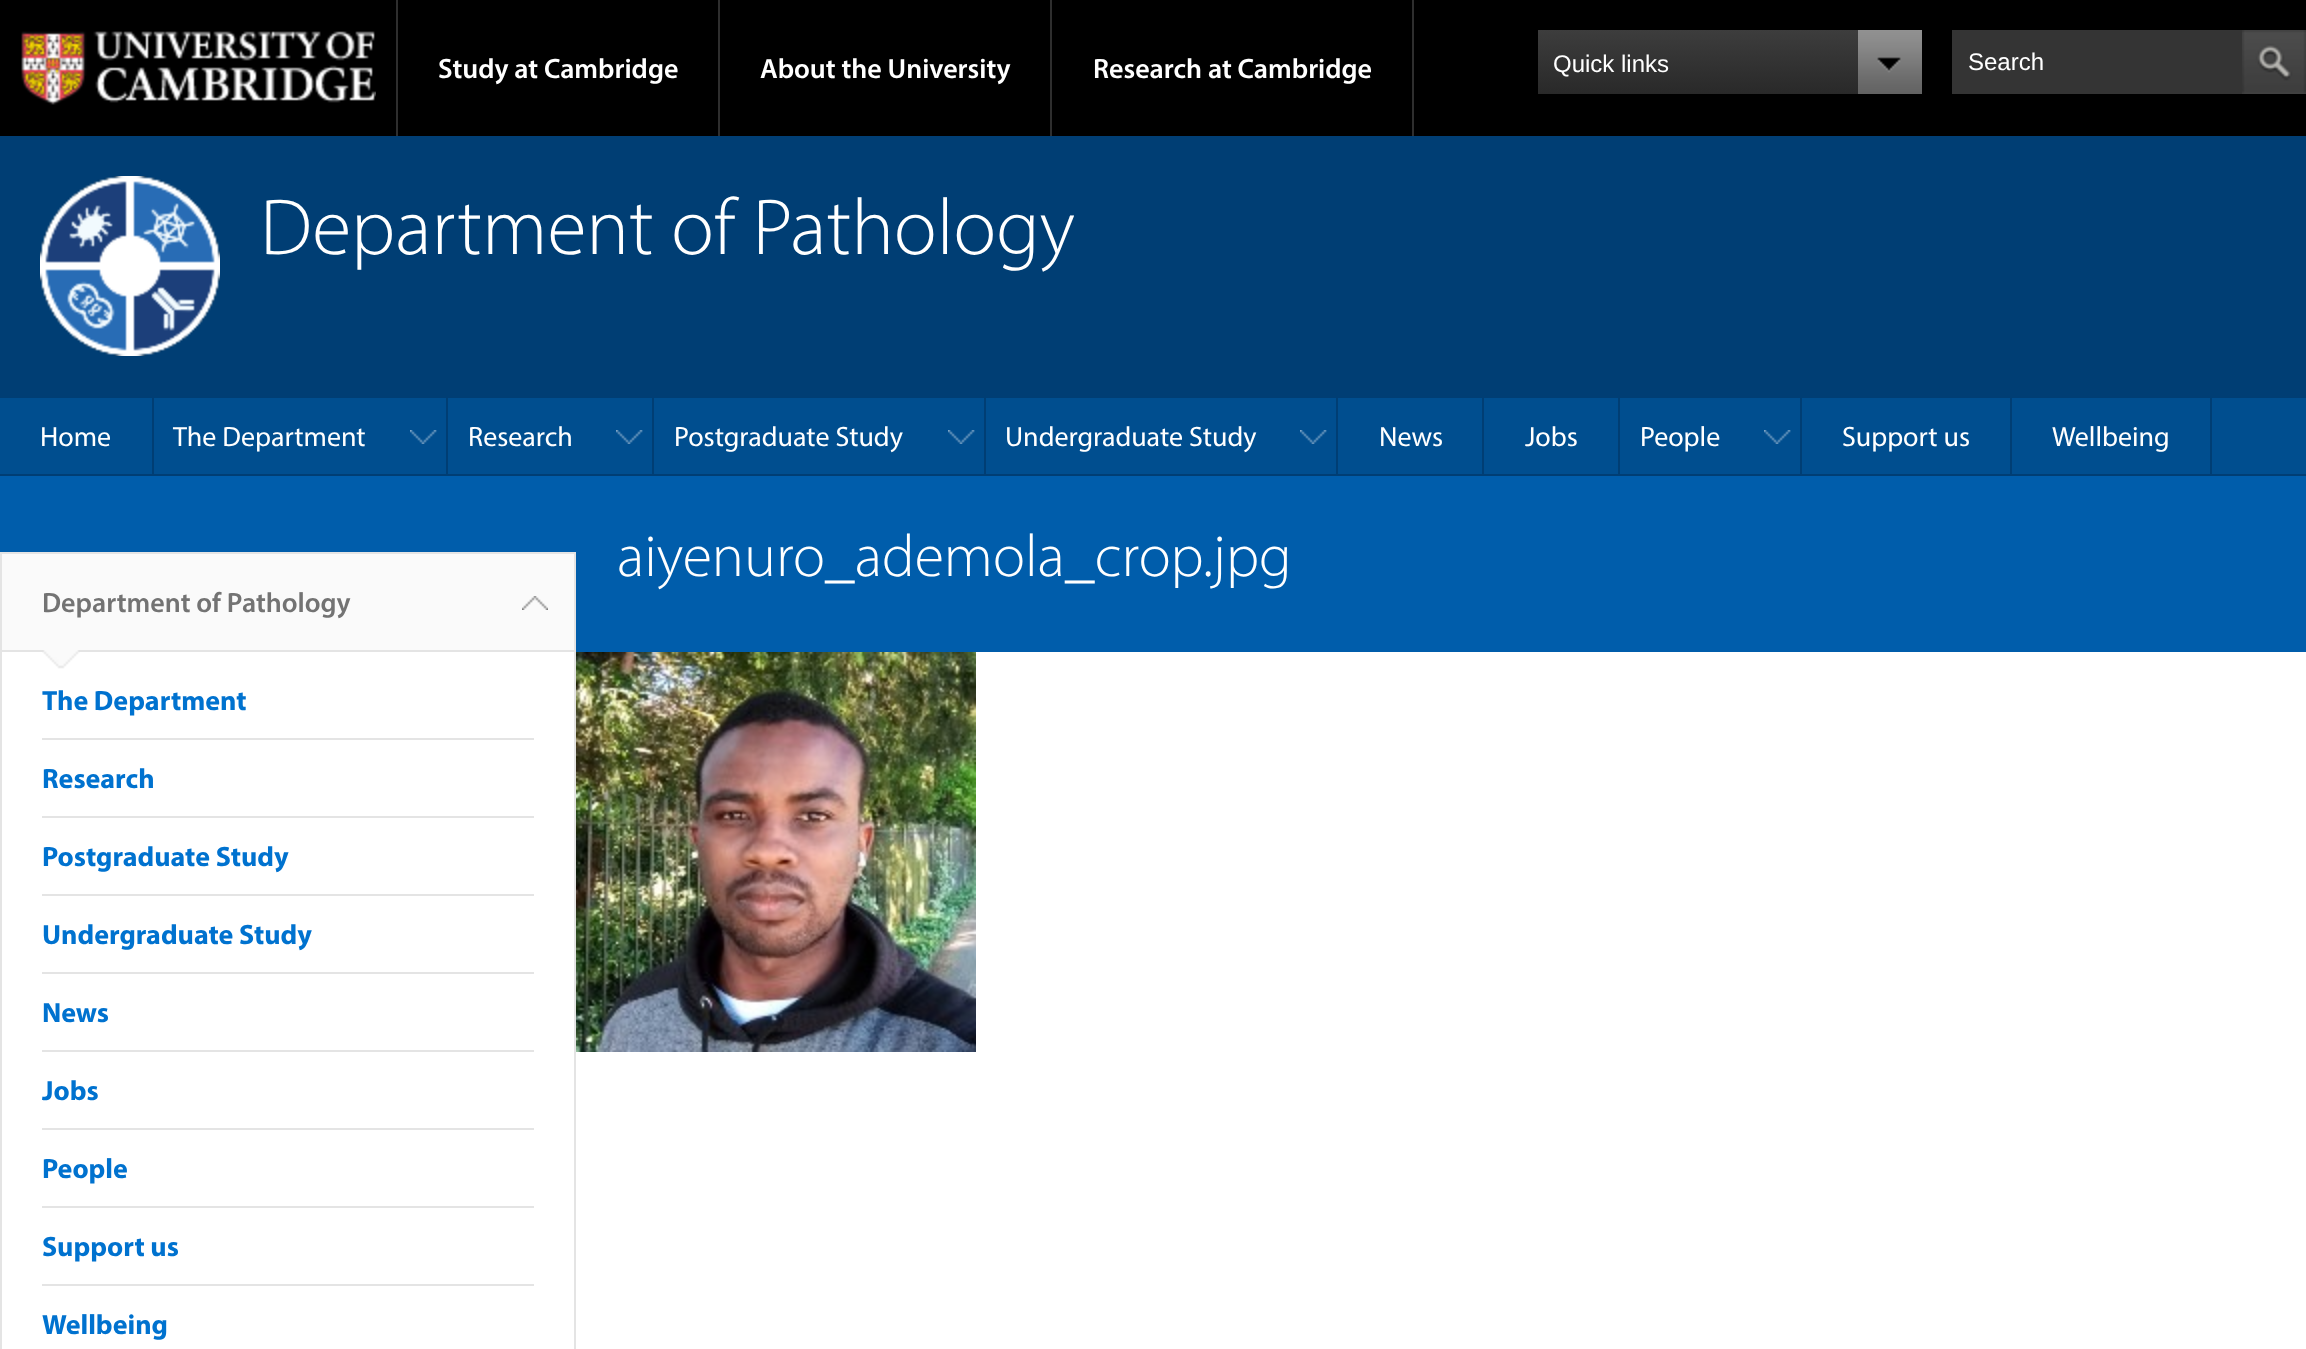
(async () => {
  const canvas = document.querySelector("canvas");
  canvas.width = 2306;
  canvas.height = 1349;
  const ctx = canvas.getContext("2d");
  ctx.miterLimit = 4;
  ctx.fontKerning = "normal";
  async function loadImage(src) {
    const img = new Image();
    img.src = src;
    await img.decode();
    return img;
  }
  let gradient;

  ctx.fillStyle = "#000000";
  ctx.fillRect(0, 0, 2306, 1349);
  ctx.drawImage(await loadImage("img/1.png"), 21, 31, 355, 74);
  for (const [x, y, w, h, color] of [
    [396, 0, 2, 136, "#2e2e2e"],
    [718, 0, 2, 136, "#2e2e2e"],
    [1050, 0, 2, 136, "#2e2e2e"],
    [1412, 0, 2, 136, "#2e2e2e"],
  ]) {
    ctx.fillStyle = color;
    ctx.fillRect(x, y, w, h);
  }
  gradient = ctx.createLinearGradient(1730, 30, 1730, 94);
  gradient.addColorStop(0, "#3d3d3d");
  gradient.addColorStop(1, "#292929");
  ctx.fillStyle = gradient;
  ctx.fillRect(1538, 30, 320, 64);
  ctx.drawImage(await loadImage("img/2.png"), 1858, 30, 64, 64);
  ctx.fillStyle = "#343434";
  ctx.fillRect(1952, 30, 290, 64);
  ctx.drawImage(await loadImage("img/3.png"), 2242, 30, 64, 64);
  ctx.fillStyle = "#003e74";
  ctx.fillRect(0, 136, 2306, 260);
  ctx.drawImage(await loadImage("img/4.png"), 40, 176, 180, 180);
  for (const [x, y, w, h, color] of [
    [2212, 398, 94, 76, "#004e8f"],
    [2212, 396, 94, 2, "#003e74"],
    [2212, 474, 94, 2, "#003e74"],
    [0, 398, 152, 76, "#004e8f"],
    [0, 396, 986, 2, "#003e74"],
    [152, 396, 2, 80, "#003e74"],
    [0, 474, 154, 2, "#003e74"],
    [154, 398, 292, 76, "#004e8f"],
  ]) {
    ctx.fillStyle = color;
    ctx.fillRect(x, y, w, h);
  }
  ctx.drawImage(await loadImage("img/5.png"), 410, 430, 27, 14);
  for (const [x, y, w, h, color] of [
    [446, 396, 2, 80, "#003e74"],
    [154, 474, 294, 2, "#003e74"],
    [448, 398, 204, 76, "#004e8f"],
  ]) {
    ctx.fillStyle = color;
    ctx.fillRect(x, y, w, h);
  }
  ctx.drawImage(await loadImage("img/5.png"), 616, 430, 27, 14);
  for (const [x, y, w, h, color] of [
    [652, 396, 2, 80, "#003e74"],
    [448, 474, 206, 2, "#003e74"],
    [654, 398, 330, 76, "#004e8f"],
  ]) {
    ctx.fillStyle = color;
    ctx.fillRect(x, y, w, h);
  }
  ctx.drawImage(await loadImage("img/5.png"), 948, 430, 27, 14);
  for (const [x, y, w, h, color] of [
    [984, 396, 2, 80, "#003e74"],
    [654, 474, 332, 2, "#003e74"],
    [986, 398, 350, 76, "#004e8f"],
  ]) {
    ctx.fillStyle = color;
    ctx.fillRect(x, y, w, h);
  }
  ctx.drawImage(await loadImage("img/5.png"), 1300, 430, 27, 14);
  for (const [x, y, w, h, color] of [
    [986, 396, 634, 2, "#003e74"],
    [1336, 396, 2, 80, "#003e74"],
    [986, 474, 352, 2, "#003e74"],
    [1338, 398, 144, 76, "#004e8f"],
    [1482, 396, 2, 80, "#003e74"],
    [1338, 474, 146, 2, "#003e74"],
    [1484, 398, 134, 76, "#004e8f"],
    [1618, 396, 2, 80, "#003e74"],
    [1484, 474, 136, 2, "#003e74"],
    [1620, 398, 180, 76, "#004e8f"],
  ]) {
    ctx.fillStyle = color;
    ctx.fillRect(x, y, w, h);
  }
  ctx.drawImage(await loadImage("img/5.png"), 1764, 430, 27, 14);
  for (const [x, y, w, h, color] of [
    [1620, 396, 592, 2, "#003e74"],
    [1800, 396, 2, 80, "#003e74"],
    [1620, 474, 182, 2, "#003e74"],
    [1802, 398, 208, 76, "#004e8f"],
    [2010, 396, 2, 80, "#003e74"],
    [1802, 474, 210, 2, "#003e74"],
    [2012, 398, 198, 76, "#004e8f"],
    [2210, 396, 2, 80, "#003e74"],
    [2012, 474, 200, 2, "#003e74"],
    [0, 476, 2306, 176, "#005dab"],
    [576, 652, 1730, 697, "#ffffff"],
    [0, 552, 576, 2, "#e4e4e4"],
    [574, 552, 2, 797, "#e4e4e4"],
    [0, 552, 2, 797, "#e4e4e4"],
    [2, 652, 572, 697, "#ffffff"],
    [2, 554, 572, 96, "#fafafa"],
  ]) {
    ctx.fillStyle = color;
    ctx.fillRect(x, y, w, h);
  }
  ctx.drawImage(await loadImage("img/6.png"), 522, 596, 26, 14);
  ctx.fillStyle = "#e4e4e4";
  ctx.fillRect(2, 650, 572, 2);
  ctx.drawImage(await loadImage("img/7.png"), 42, 650, 38, 19);
  for (const [x, y, w, h, color] of [
    [42, 738, 492, 2, "#e4e4e4"],
    [42, 816, 492, 2, "#e4e4e4"],
    [42, 894, 492, 2, "#e4e4e4"],
    [42, 972, 492, 2, "#e4e4e4"],
    [42, 1050, 492, 2, "#e4e4e4"],
    [42, 1128, 492, 2, "#e4e4e4"],
    [42, 1206, 492, 2, "#e4e4e4"],
    [42, 1284, 492, 2, "#e4e4e4"],
  ]) {
    ctx.fillStyle = color;
    ctx.fillRect(x, y, w, h);
  }
  ctx.drawImage(await loadImage("img/8.png"), 576, 652, 400, 400);
  ctx.font = "600 28px Myriad";
  ctx.fillStyle = "#ffffff";
  for (const [text, x, y] of [
    ["Study at Cambridge", 438, 78],
    ["About the University", 760, 78],
    ["Research at Cambridge", 1093, 78],
  ]) {
    ctx.fillText(text, x, y);
  }
  ctx.font = "24px Liberation Sans";
  ctx.fillText("Quick links", 1553, 72);
  ctx.fillText("Search", 1968, 70);
  ctx.font = "300 80px Myriad";
  ctx.fillText("Department of Pathology", 260, 254);
  ctx.font = "28px Myriad";
  for (const [text, x, y] of [
    ["Home", 40, 446],
    ["The Department", 173, 446],
    ["Research", 468, 446],
    ["Postgraduate Study", 674, 446],
    ["Undergraduate Study", 1005, 446],
    ["News", 1379, 446],
    ["Jobs", 1525, 446],
    ["People", 1640, 446],
    ["Support us", 1842, 446],
    ["Wellbeing", 2052, 446],
  ]) {
    ctx.fillText(text, x, y);
  }
  ctx.font = "300 60px Myriad";
  ctx.fillText("aiyenuro_ademola_crop.jpg", 617, 576);
  ctx.font = "600 28px Myriad";
  ctx.fillStyle = "#737373";
  ctx.fillText("Department of Pathology", 42, 612);
  ctx.font = "bold 28px Myriad";
  ctx.fillStyle = "#0072cf";
  for (const [text, x, y] of [
    ["The Department", 42, 710],
    ["Research", 42, 788],
    ["Postgraduate Study", 42, 866],
    ["Undergraduate Study", 42, 944],
    ["News", 42, 1022],
    ["Jobs", 42, 1100],
    ["People", 42, 1178],
    ["Support us", 42, 1256],
    ["Wellbeing", 42, 1334],
  ]) {
    ctx.fillText(text, x, y);
  }
})();
